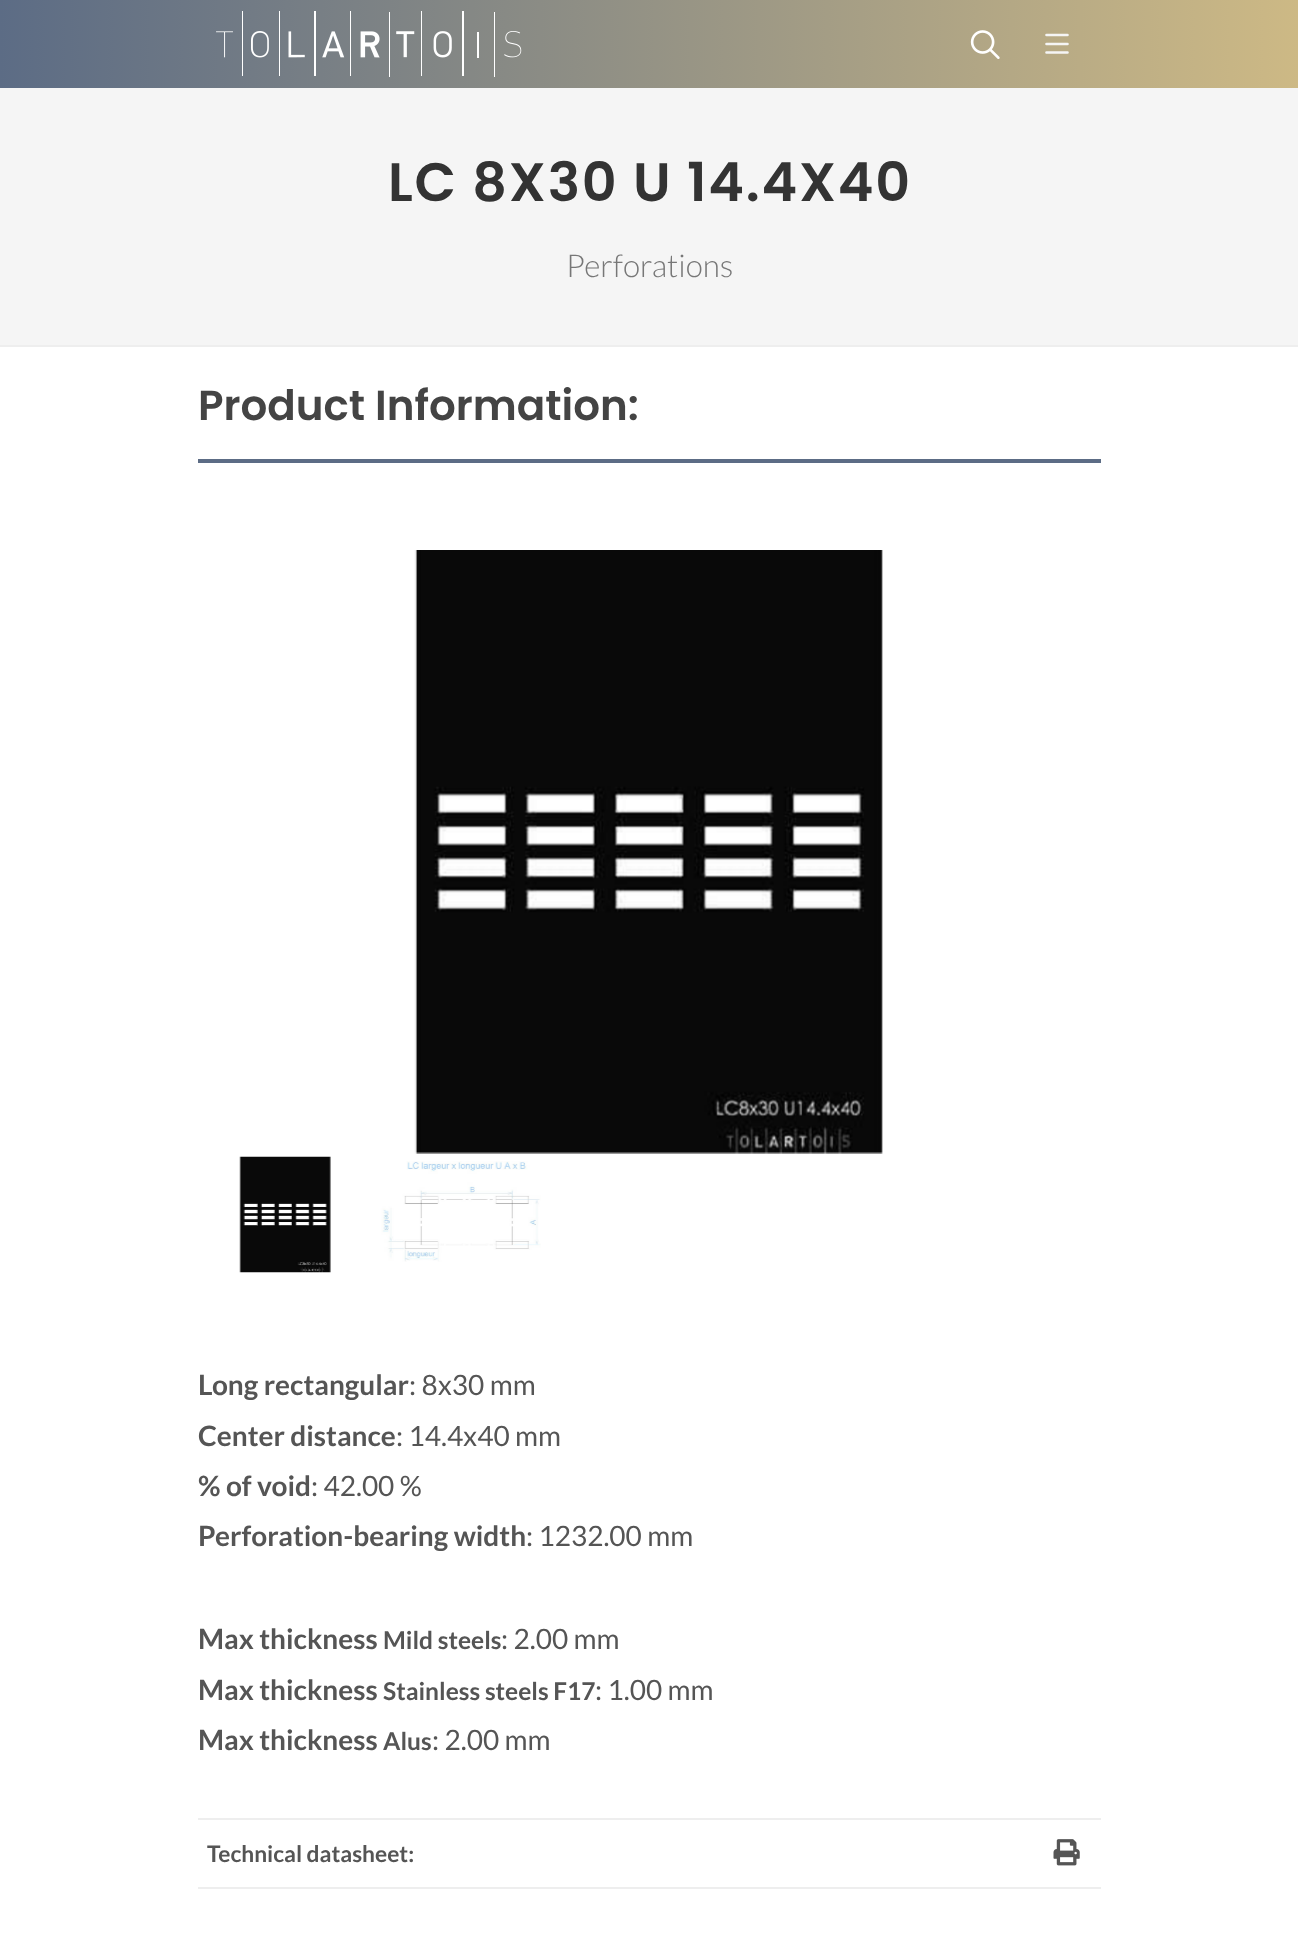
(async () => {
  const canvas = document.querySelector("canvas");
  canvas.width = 1298;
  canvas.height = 1950;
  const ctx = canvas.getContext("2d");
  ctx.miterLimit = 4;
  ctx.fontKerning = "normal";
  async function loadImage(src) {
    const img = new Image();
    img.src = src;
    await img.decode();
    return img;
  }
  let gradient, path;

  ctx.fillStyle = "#ffffff";
  ctx.fillRect(0, 0, 1298, 1950);
  gradient = ctx.createLinearGradient(0, 44, 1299, 44);
  gradient.addColorStop(0, "#5c6c85");
  gradient.addColorStop(1, "#cdb985");
  ctx.fillStyle = gradient;
  ctx.fillRect(0, 0, 1298, 88);
  ctx.drawImage(await loadImage("img/1.png"), 216, 11, 306, 66);
  ctx.drawImage(await loadImage("img/2.png"), 970, 30, 30, 29);
  path = new Path2D("M1046.5 35H1067.5M1046.5 44H1067.5M1067.5 52.5H1046.5");
  ctx.strokeStyle = "#f5f5f5";
  ctx.lineWidth = 2.6;
  ctx.lineCap = "round";
  ctx.stroke(path);
  for (const [x, y, w, h, color] of [
    [0, 88, 1298, 257, "#f5f5f5"],
    [0, 345, 1298, 2, "#eeeeee"],
    [198, 459, 903, 4, "#5c6c85"],
  ]) {
    ctx.fillStyle = color;
    ctx.fillRect(x, y, w, h);
  }
  ctx.drawImage(await loadImage("img/3.png"), 414, 550, 469, 604);
  ctx.drawImage(await loadImage("img/4.png"), 239, 1156, 92, 117);
  ctx.drawImage(await loadImage("img/5.png"), 381, 1161, 160, 101);
  ctx.fillStyle = "#eeeeee";
  ctx.fillRect(198, 1818, 903, 2);
  ctx.fillRect(198, 1887, 903, 2);
  ctx.drawImage(await loadImage("img/6.png"), 1053, 1839, 27, 27);
  ctx.letterSpacing = "1.75px";
  ctx.font = "600 54px Poppins";
  ctx.fillStyle = "#333333";
  ctx.fillText("LC 8X30 U 14.4X40", 388, 201);
  ctx.letterSpacing = "0px";
  ctx.font = "300 31.5px Lato";
  ctx.fillStyle = "#777777";
  ctx.fillText("Perforations", 566, 277);
  ctx.font = "600 42px Poppins";
  ctx.fillStyle = "#444444";
  ctx.fillText("Product Information:", 198, 420);
  ctx.font = "bold 28px Lato";
  ctx.fillStyle = "#555555";
  ctx.fillText("Long rectangular", 198, 1395);
  ctx.font = "28px Lato";
  ctx.fillText(": 8x30 mm", 409, 1395);
  ctx.font = "bold 28px Lato";
  ctx.fillText("Center distance", 198, 1446);
  ctx.font = "28px Lato";
  ctx.fillText(": 14.4x40 mm", 396, 1446);
  ctx.font = "bold 28px Lato";
  ctx.fillText("% of void", 198, 1496);
  ctx.font = "28px Lato";
  ctx.fillText(": 42.00 %", 311, 1496);
  ctx.font = "bold 28px Lato";
  ctx.fillText("Perforation-bearing width", 198, 1546);
  ctx.font = "28px Lato";
  ctx.fillText(": 1232.00 mm", 526, 1546);
  ctx.font = "bold 28px Lato";
  ctx.fillText("Max thickness", 198, 1649);
  ctx.font = "bold 24.5px Lato";
  ctx.fillText("Mild steels", 383, 1649);
  ctx.font = "28px Lato";
  ctx.fillText(": 2.00 mm", 501, 1649);
  ctx.font = "bold 28px Lato";
  ctx.fillText("Max thickness", 198, 1700);
  ctx.font = "bold 24.5px Lato";
  ctx.fillText("Stainless steels F17", 383, 1700);
  ctx.font = "28px Lato";
  ctx.fillText(": 1.00 mm", 595, 1700);
  ctx.font = "bold 28px Lato";
  ctx.fillText("Max thickness", 198, 1750);
  ctx.font = "bold 24.5px Lato";
  ctx.fillText("Alus", 383, 1750);
  ctx.font = "28px Lato";
  ctx.fillText(": 2.00 mm", 432, 1750);
  ctx.font = "bold 22.75px Lato";
  ctx.fillText("Technical datasheet:", 207, 1862);
})();
